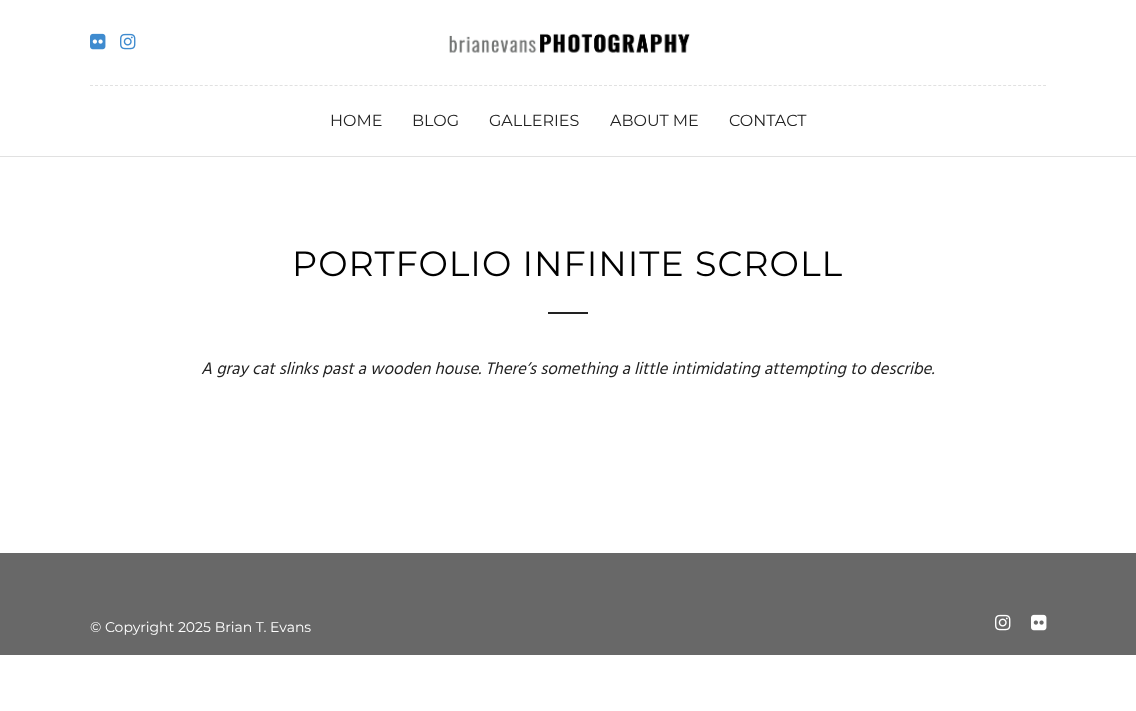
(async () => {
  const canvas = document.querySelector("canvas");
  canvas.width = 1136;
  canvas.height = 711;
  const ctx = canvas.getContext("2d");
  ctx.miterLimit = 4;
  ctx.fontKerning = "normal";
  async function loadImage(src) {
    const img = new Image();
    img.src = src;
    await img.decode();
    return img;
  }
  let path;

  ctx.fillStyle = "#ffffff";
  ctx.fillRect(0, 0, 1136, 711);
  ctx.fillStyle = "#e1e1e1";
  ctx.fillRect(0, 156, 1136, 1);
  ctx.drawImage(await loadImage("img/1.png"), 90, 33, 16, 17);
  ctx.drawImage(await loadImage("img/2.png"), 120, 33, 16, 17);
  ctx.drawImage(await loadImage("img/3.png"), 449, 33, 241, 20);
  path = new Path2D("M90 85.5H1046");
  ctx.strokeStyle = "#e1e1e1";
  ctx.setLineDash([3, 1.99]);
  ctx.stroke(path);
  ctx.fillStyle = "#222222";
  ctx.fillRect(548, 312, 40, 2);
  ctx.fillStyle = "#686868";
  ctx.fillRect(0, 553, 1136, 102);
  ctx.drawImage(await loadImage("img/4.png"), 995, 614, 16, 17);
  ctx.drawImage(await loadImage("img/5.png"), 1031, 614, 16, 17);
  ctx.font = "16px Montserrat";
  ctx.fillStyle = "#222222";
  for (const [text, x, y] of [
    ["HOME", 330, 126],
    ["BLOG", 412, 126],
    ["GALLERIES", 489, 126],
    ["ABOUT ME", 610, 126],
    ["CONTACT", 729, 126],
  ]) {
    ctx.fillText(text, x, y);
  }
  ctx.letterSpacing = "1px";
  ctx.font = "35px Montserrat";
  ctx.fillStyle = "#000000";
  ctx.fillText("PORTFOLIO INFINITE SCROLL", 292, 276);
  ctx.letterSpacing = "0px";
  ctx.font = "italic 17px Hind";
  ctx.fillStyle = "#222222";
  ctx.fillText("A gray cat slinks past a wooden house. There’s something a little intimidating attempting to describe.", 201, 374);
  ctx.font = "14px Montserrat";
  ctx.fillStyle = "#ffffff";
  ctx.fillText("© Copyright 2025 Brian T. Evans", 90, 632);
})();
